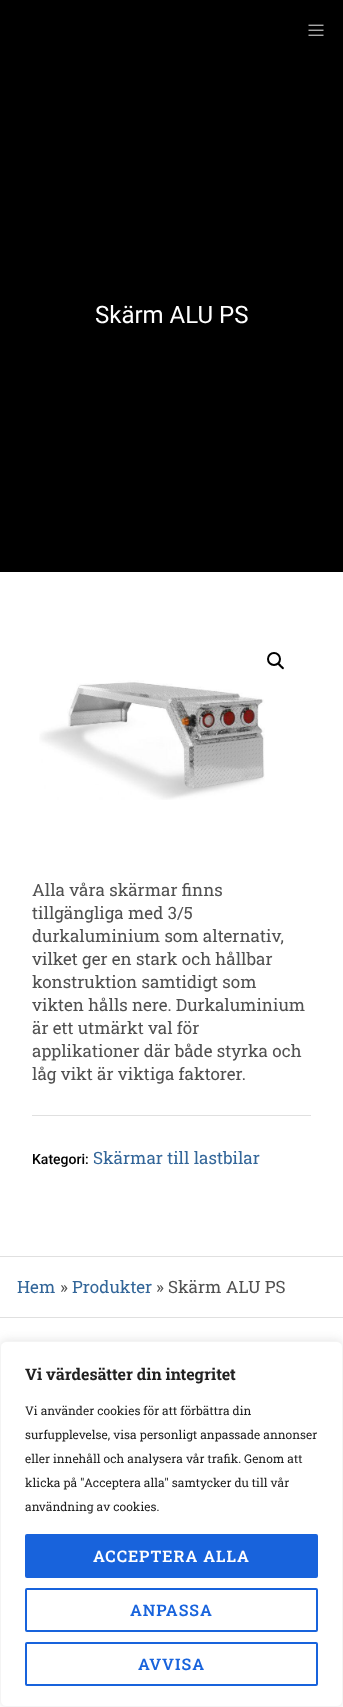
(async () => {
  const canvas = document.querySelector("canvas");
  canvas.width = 343;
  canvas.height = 1707;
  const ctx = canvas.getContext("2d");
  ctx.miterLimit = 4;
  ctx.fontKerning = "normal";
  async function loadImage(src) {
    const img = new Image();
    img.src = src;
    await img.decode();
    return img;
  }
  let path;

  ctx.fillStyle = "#000000";
  ctx.fillRect(0, 0, 343, 1707);
  ctx.drawImage(await loadImage("img/1.png"), 308, 24, 16, 12);
  ctx.fillStyle = "#ffffff";
  ctx.fillRect(0, 572, 343, 684);
  ctx.beginPath();
  ctx.arc(274, 659, 6, 0, Math.PI * 2);
  ctx.strokeStyle = "#000000";
  ctx.lineWidth = 2;
  ctx.stroke();
  ctx.fillStyle = "#000000";
  path = new Path2D("M278 663.5C279 662 281 665 281.5 665.5C282 666 285 667.5 283.5 669C282.5 670 281 667.5 280 667C279.5 666 277 664.5 278 663.5Z");
  ctx.fill(path);
  ctx.drawImage(await loadImage("img/2.png"), 39, 680, 226, 120);
  for (const [x, y, w, h, color] of [
    [32, 1115, 279, 1, "#e0e0e0"],
    [0, 1257, 343, 60, "#ffffff"],
    [0, 1256, 343, 1, "#e0e0e0"],
    [0, 1317, 343, 1, "#e0e0e0"],
    [0, 1318, 343, 389, "#ffffff"],
  ]) {
    ctx.fillStyle = color;
    ctx.fillRect(x, y, w, h);
  }
  ctx.fillStyle = "rgba(172, 171, 171, 0.3)";
  ctx.filter = "blur(5px)";
  ctx.beginPath();
  ctx.roundRect(0, 1340, 343, 366, 6);
  ctx.fill();
  ctx.filter = "none";
  ctx.fillStyle = "#ffffff";
  ctx.beginPath();
  ctx.roundRect(0.5, 1341.5, 342, 365, 5.5);
  ctx.fill();
  ctx.strokeStyle = "#f4f4f4";
  ctx.lineWidth = 1;
  ctx.stroke();
  ctx.fillStyle = "#1863dc";
  ctx.beginPath();
  ctx.roundRect(26, 1535, 291, 42, 1);
  ctx.fill();
  ctx.strokeStyle = "#1863dc";
  ctx.lineWidth = 2;
  ctx.stroke();
  ctx.beginPath();
  ctx.roundRect(26, 1589, 291, 42, 1);
  ctx.stroke();
  ctx.beginPath();
  ctx.roundRect(26, 1643, 291, 42, 1);
  ctx.stroke();
  ctx.font = "24px Roboto";
  ctx.fillStyle = "#ffffff";
  ctx.fillText("Skärm ALU PS", 95, 323);
  ctx.font = "17px Roboto Slab";
  ctx.fillStyle = "#515151";
  for (const [text, x, y] of [
    ["Alla våra skärmar finns", 32, 896],
    ["tillgängliga med 3/5", 32, 919],
    ["durkaluminium som alternativ,", 32, 942],
    ["vilket ger en stark och hållbar", 32, 965],
    ["konstruktion samtidigt som", 32, 988],
    ["vikten hålls nere. Durkaluminium", 32, 1011],
    ["är ett utmärkt val för", 32, 1034],
    ["applikationer där både styrka och", 32, 1057],
    ["låg vikt är viktiga faktorer.", 32, 1080],
  ]) {
    ctx.fillText(text, x, y);
  }
  ctx.font = "500 14px Roboto";
  ctx.fillStyle = "#000000";
  ctx.fillText("Kategori:", 32, 1164);
  ctx.font = "17px Roboto Slab";
  ctx.fillStyle = "#336699";
  ctx.fillText("Skärmar till lastbilar", 93, 1164);
  ctx.fillText("Hem", 17, 1293);
  ctx.fillStyle = "#515151";
  ctx.fillText("»", 60, 1293);
  ctx.fillStyle = "#336699";
  ctx.fillText("Produkter", 72, 1293);
  ctx.fillStyle = "#515151";
  ctx.fillText("» Skärm ALU PS", 156, 1293);
  ctx.font = "bold 16px Roboto Slab";
  ctx.fillStyle = "#212121";
  ctx.fillText("Vi värdesätter din integritet", 25, 1380);
  ctx.font = "12px Roboto Slab";
  for (const [text, x, y] of [
    ["Vi använder cookies för att förbättra din", 25, 1415],
    ["surfupplevelse, visa personligt anpassade annonser", 25, 1439],
    ["eller innehåll och analysera vår trafik. Genom att", 25, 1463],
    ["klicka på \"Acceptera alla\" samtycker du till vår", 25, 1487],
    ["användning av cookies.", 25, 1511],
  ]) {
    ctx.fillText(text, x, y);
  }
  ctx.letterSpacing = "1px";
  ctx.font = "600 16px Roboto Slab";
  ctx.fillStyle = "#ffffff";
  ctx.fillText("ACCEPTERA ALLA", 93, 1562);
  ctx.fillStyle = "#1863dc";
  ctx.fillText("ANPASSA", 130, 1616);
  ctx.fillText("AVVISA", 138, 1670);
})();
